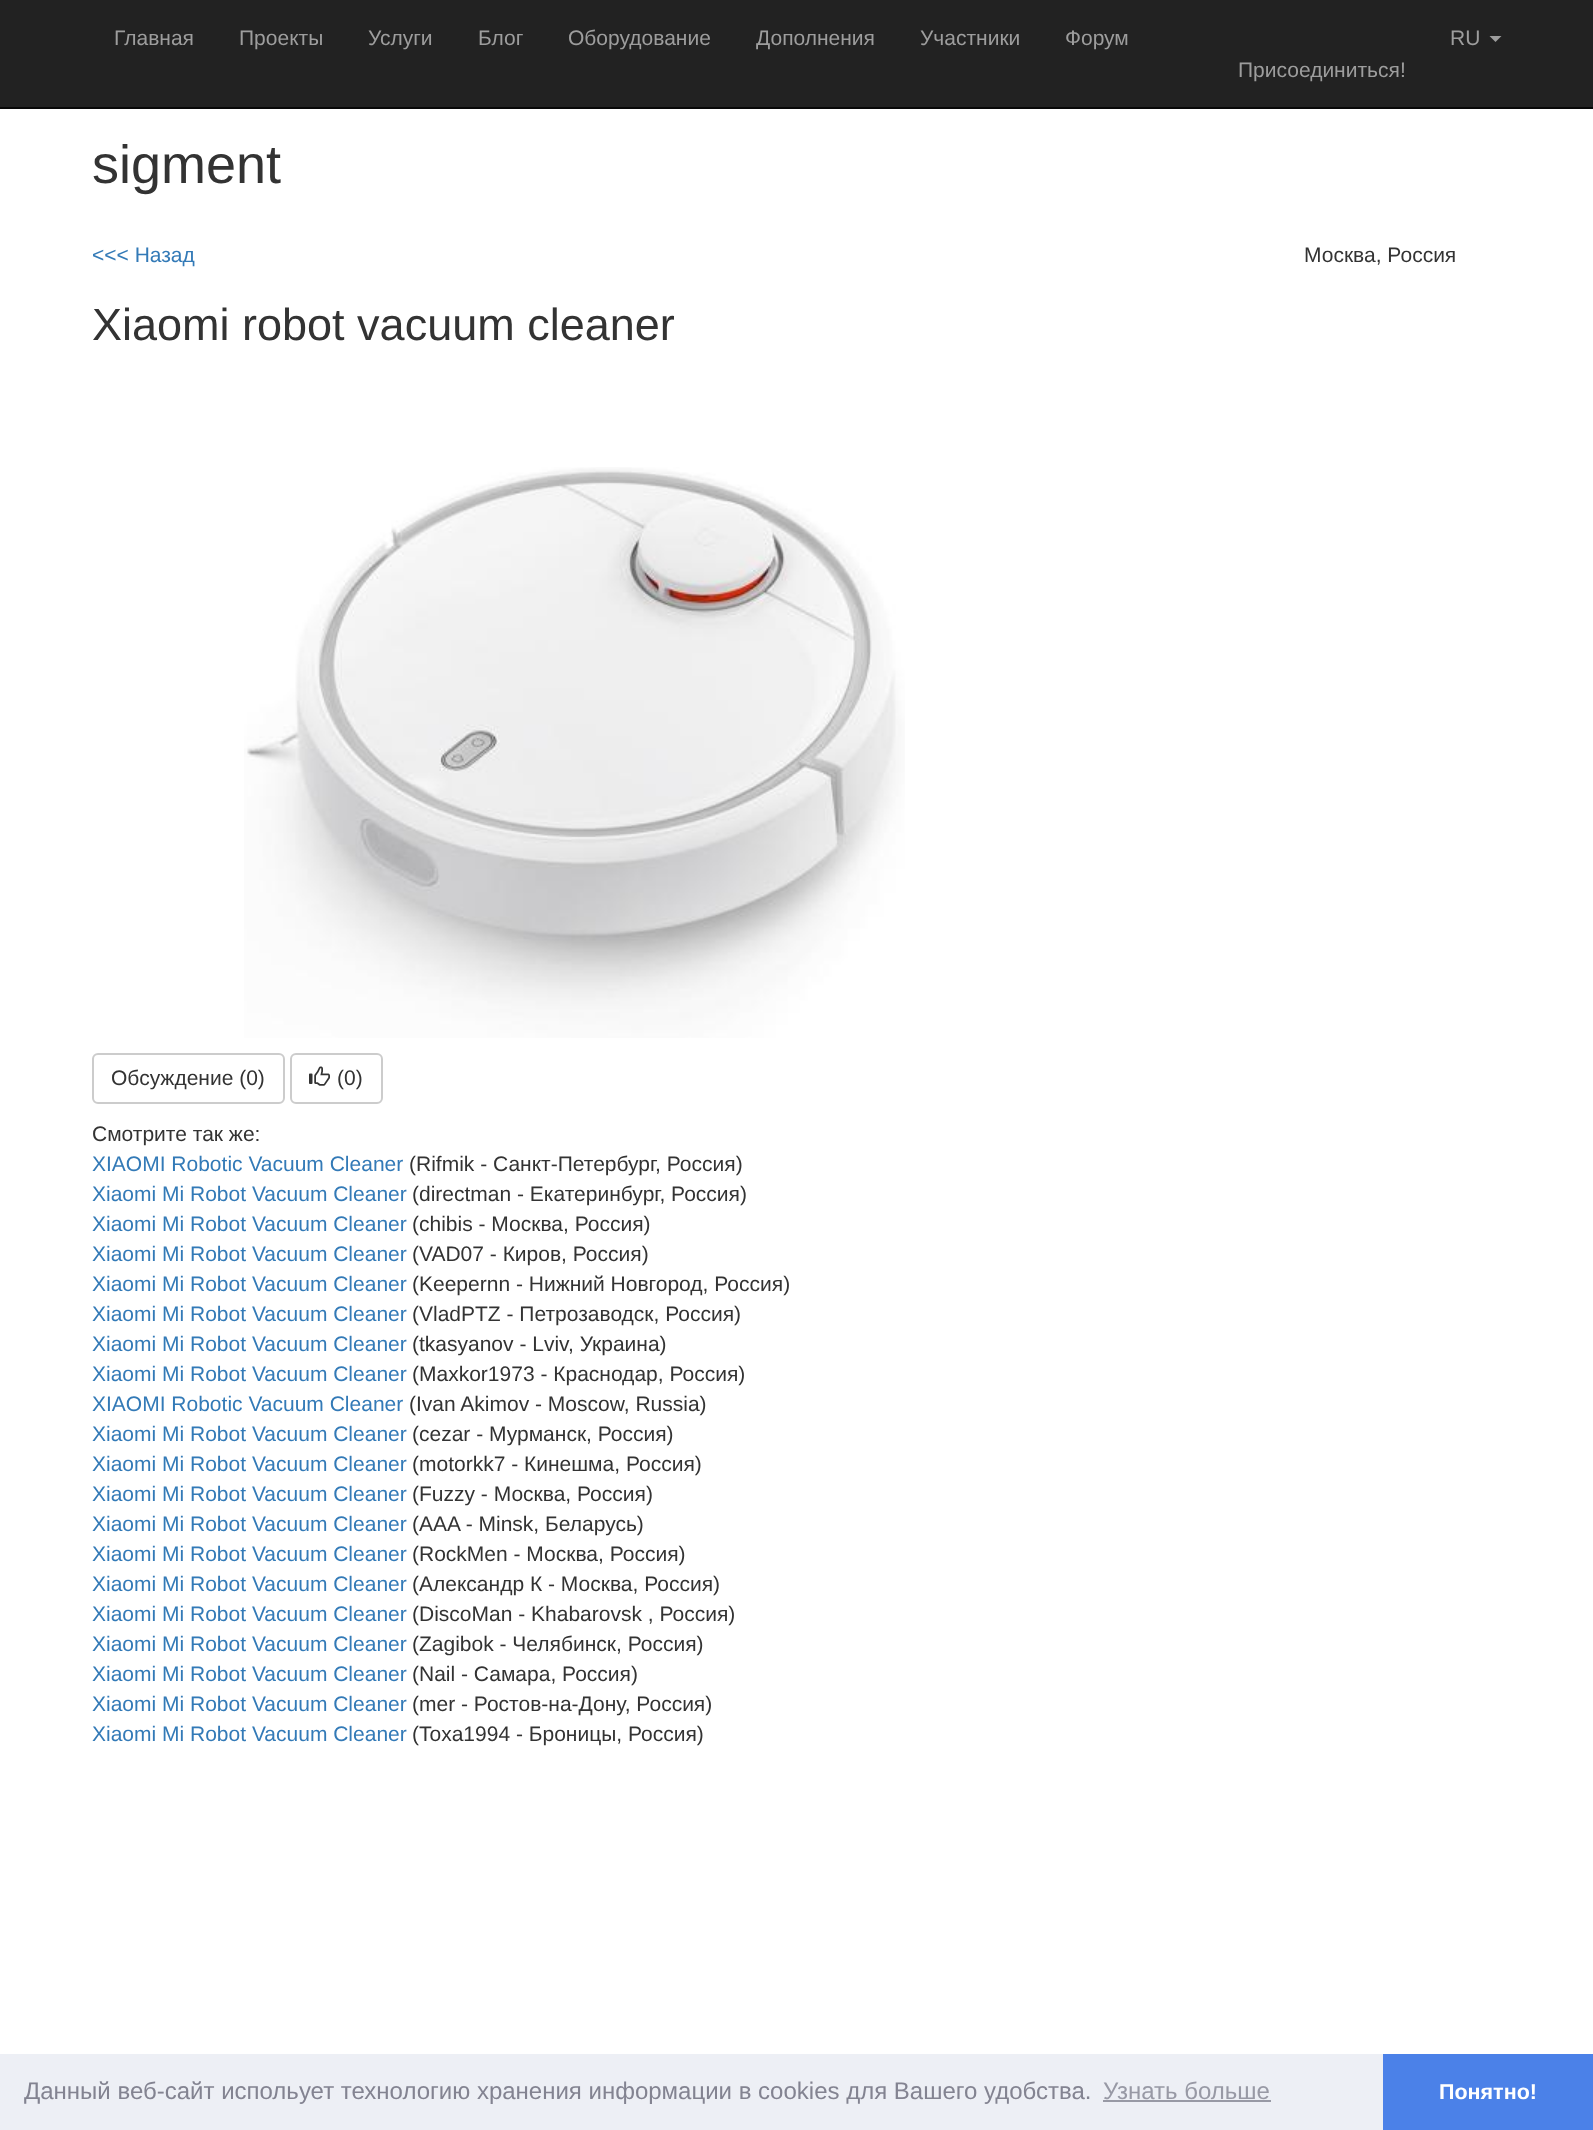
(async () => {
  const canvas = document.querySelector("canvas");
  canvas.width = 1593;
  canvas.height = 2130;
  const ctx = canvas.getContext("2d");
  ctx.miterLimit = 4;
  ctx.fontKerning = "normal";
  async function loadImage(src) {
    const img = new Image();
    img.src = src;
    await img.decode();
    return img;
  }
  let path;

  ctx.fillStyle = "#ffffff";
  ctx.fillRect(0, 0, 1593, 2130);
  ctx.fillStyle = "#222222";
  ctx.fillRect(0, 0, 1593, 107);
  ctx.fillStyle = "#080808";
  ctx.fillRect(0, 107, 1593, 2);
  ctx.fillStyle = "#9d9d9d";
  path = new Path2D("M1489.5 36H1501.5L1495.5 42Z");
  ctx.fill(path);
  ctx.drawImage(await loadImage("img/1.png"), 244, 467, 661, 571);
  ctx.beginPath();
  ctx.roundRect(93, 1054, 191, 49, 5);
  ctx.strokeStyle = "#cccccc";
  ctx.lineWidth = 2;
  ctx.stroke();
  ctx.beginPath();
  ctx.roundRect(291, 1054, 91, 49, 5);
  ctx.stroke();
  ctx.drawImage(await loadImage("img/2.png"), 309, 1066, 21, 20);
  for (const [x, y, w, h, color] of [
    [0, 2054, 1383, 76, "#edeff5"],
    [1103, 2100, 168, 2, "#9899a5"],
    [1383, 2054, 210, 76, "#4b81e8"],
  ]) {
    ctx.fillStyle = color;
    ctx.fillRect(x, y, w, h);
  }
  ctx.font = "21px Liberation Sans";
  ctx.fillStyle = "#9d9d9d";
  for (const [text, x, y] of [
    ["Главная", 114, 45],
    ["Проекты", 239, 45],
    ["Услуги", 368, 45],
    ["Блог", 478, 45],
    ["Оборудование", 568, 45],
    ["Дополнения", 756, 45],
    ["Участники", 920, 45],
    ["Форум", 1065, 45],
    ["RU", 1450, 45],
    ["Присоединиться!", 1238, 77],
  ]) {
    ctx.fillText(text, x, y);
  }
  ctx.font = "54px Liberation Sans";
  ctx.fillStyle = "#333333";
  ctx.fillText("sigment", 92, 183);
  ctx.font = "21px Liberation Sans";
  ctx.fillStyle = "#337ab7";
  ctx.fillText("<<< Назад", 92, 262);
  ctx.font = "45px Liberation Sans";
  ctx.fillStyle = "#333333";
  ctx.fillText("Xiaomi robot vacuum cleaner", 92, 340);
  ctx.font = "21px Liberation Sans";
  for (const [text, x, y] of [
    ["Обсуждение (0)", 111, 1085],
    ["(0)", 337, 1085],
    ["Смотрите так же:", 92, 1141],
  ]) {
    ctx.fillText(text, x, y);
  }
  ctx.fillStyle = "#337ab7";
  ctx.fillText("XIAOMI Robotic Vacuum Cleaner", 92, 1171);
  ctx.fillStyle = "#333333";
  ctx.fillText("(Rifmik - Санкт-Петербург, Россия)", 409, 1171);
  ctx.fillStyle = "#337ab7";
  ctx.fillText("Xiaomi Mi Robot Vacuum Cleaner", 92, 1201);
  ctx.fillStyle = "#333333";
  ctx.fillText("(directman - Екатеринбург, Россия)", 412, 1201);
  ctx.fillStyle = "#337ab7";
  ctx.fillText("Xiaomi Mi Robot Vacuum Cleaner", 92, 1231);
  ctx.fillStyle = "#333333";
  ctx.fillText("(chibis - Москва, Россия)", 412, 1231);
  ctx.fillStyle = "#337ab7";
  ctx.fillText("Xiaomi Mi Robot Vacuum Cleaner", 92, 1261);
  ctx.fillStyle = "#333333";
  ctx.fillText("(VAD07 - Киров, Россия)", 412, 1261);
  ctx.fillStyle = "#337ab7";
  ctx.fillText("Xiaomi Mi Robot Vacuum Cleaner", 92, 1291);
  ctx.fillStyle = "#333333";
  ctx.fillText("(Keepernn - Нижний Новгород, Россия)", 412, 1291);
  ctx.fillStyle = "#337ab7";
  ctx.fillText("Xiaomi Mi Robot Vacuum Cleaner", 92, 1321);
  ctx.fillStyle = "#333333";
  ctx.fillText("(VladPTZ - Петрозаводск, Россия)", 412, 1321);
  ctx.fillStyle = "#337ab7";
  ctx.fillText("Xiaomi Mi Robot Vacuum Cleaner", 92, 1351);
  ctx.fillStyle = "#333333";
  ctx.fillText("(tkasyanov - Lviv, Украина)", 412, 1351);
  ctx.fillStyle = "#337ab7";
  ctx.fillText("Xiaomi Mi Robot Vacuum Cleaner", 92, 1381);
  ctx.fillStyle = "#333333";
  ctx.fillText("(Maxkor1973 - Краснодар, Россия)", 412, 1381);
  ctx.fillStyle = "#337ab7";
  ctx.fillText("XIAOMI Robotic Vacuum Cleaner", 92, 1411);
  ctx.fillStyle = "#333333";
  ctx.fillText("(Ivan Akimov - Moscow, Russia)", 409, 1411);
  ctx.fillStyle = "#337ab7";
  ctx.fillText("Xiaomi Mi Robot Vacuum Cleaner", 92, 1441);
  ctx.fillStyle = "#333333";
  ctx.fillText("(cezar - Мурманск, Россия)", 412, 1441);
  ctx.fillStyle = "#337ab7";
  ctx.fillText("Xiaomi Mi Robot Vacuum Cleaner", 92, 1471);
  ctx.fillStyle = "#333333";
  ctx.fillText("(motorkk7 - Кинешма, Россия)", 412, 1471);
  ctx.fillStyle = "#337ab7";
  ctx.fillText("Xiaomi Mi Robot Vacuum Cleaner", 92, 1501);
  ctx.fillStyle = "#333333";
  ctx.fillText("(Fuzzy - Москва, Россия)", 412, 1501);
  ctx.fillStyle = "#337ab7";
  ctx.fillText("Xiaomi Mi Robot Vacuum Cleaner", 92, 1531);
  ctx.fillStyle = "#333333";
  ctx.fillText("(AAA - Minsk, Беларусь)", 412, 1531);
  ctx.fillStyle = "#337ab7";
  ctx.fillText("Xiaomi Mi Robot Vacuum Cleaner", 92, 1561);
  ctx.fillStyle = "#333333";
  ctx.fillText("(RockMen - Москва, Россия)", 412, 1561);
  ctx.fillStyle = "#337ab7";
  ctx.fillText("Xiaomi Mi Robot Vacuum Cleaner", 92, 1591);
  ctx.fillStyle = "#333333";
  ctx.fillText("(Александр К - Москва, Россия)", 412, 1591);
  ctx.fillStyle = "#337ab7";
  ctx.fillText("Xiaomi Mi Robot Vacuum Cleaner", 92, 1621);
  ctx.fillStyle = "#333333";
  ctx.fillText("(DiscoMan - Khabarovsk , Россия)", 412, 1621);
  ctx.fillStyle = "#337ab7";
  ctx.fillText("Xiaomi Mi Robot Vacuum Cleaner", 92, 1651);
  ctx.fillStyle = "#333333";
  ctx.fillText("(Zagibok - Челябинск, Россия)", 412, 1651);
  ctx.fillStyle = "#337ab7";
  ctx.fillText("Xiaomi Mi Robot Vacuum Cleaner", 92, 1681);
  ctx.fillStyle = "#333333";
  ctx.fillText("(Nail - Самара, Россия)", 412, 1681);
  ctx.fillStyle = "#337ab7";
  ctx.fillText("Xiaomi Mi Robot Vacuum Cleaner", 92, 1711);
  ctx.fillStyle = "#333333";
  ctx.fillText("(mer - Ростов-на-Дону, Россия)", 412, 1711);
  ctx.fillStyle = "#337ab7";
  ctx.fillText("Xiaomi Mi Robot Vacuum Cleaner", 92, 1741);
  ctx.fillStyle = "#333333";
  ctx.fillText("(Toxa1994 - Броницы, Россия)", 412, 1741);
  ctx.fillText("Москва, Россия", 1304, 262);
  ctx.font = "24px Liberation Sans";
  ctx.fillStyle = "#838391";
  ctx.fillText("Данный веб-сайт испольует технологию хранения информации в cookies для Вашего удобства.", 24, 2099);
  ctx.fillStyle = "#9899a5";
  ctx.fillText("Узнать больше", 1103, 2099);
  ctx.font = "bold 21.5px Liberation Sans";
  ctx.fillStyle = "#ffffff";
  ctx.fillText("Понятно!", 1439, 2099);
})();
